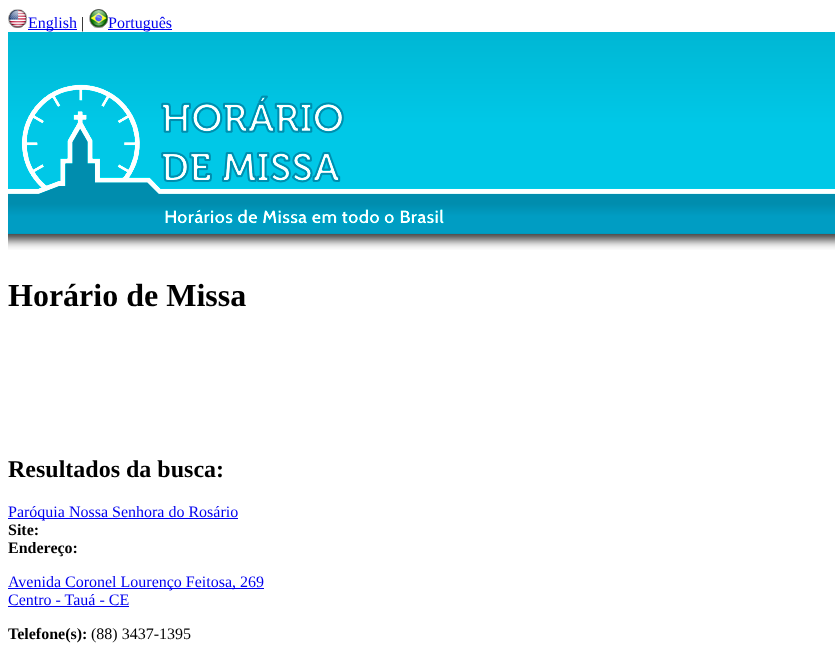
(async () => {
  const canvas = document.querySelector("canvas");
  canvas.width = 835;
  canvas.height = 663;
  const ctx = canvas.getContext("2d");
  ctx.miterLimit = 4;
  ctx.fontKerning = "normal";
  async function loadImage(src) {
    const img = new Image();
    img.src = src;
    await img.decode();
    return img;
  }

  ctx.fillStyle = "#ffffff";
  ctx.fillRect(0, 0, 835, 663);
  ctx.drawImage(await loadImage("img/1.png"), 8, 9, 19, 19);
  ctx.fillStyle = "#0000ee";
  ctx.fillRect(28, 29, 49, 1);
  ctx.drawImage(await loadImage("img/2.png"), 89, 9, 19, 19);
  ctx.fillRect(108, 29, 64, 1);
  ctx.drawImage(await loadImage("img/3.png"), 8, 32, 827, 218);
  for (const [x, y, w, h, color] of [
    [8, 518, 230, 1, "#0000ee"],
    [8, 588, 256, 1, "#0000ee"],
    [8, 606, 121, 1, "#0000ee"],
  ]) {
    ctx.fillStyle = color;
    ctx.fillRect(x, y, w, h);
  }
  ctx.font = "16px Liberation Serif";
  ctx.fillText("English", 28, 28);
  ctx.fillStyle = "#000000";
  ctx.fillText("|", 81, 28);
  ctx.fillStyle = "#0000ee";
  ctx.fillText("Português", 108, 28);
  ctx.font = "bold 32px Liberation Serif";
  ctx.fillStyle = "#000000";
  ctx.fillText("Horário de Missa", 8, 306);
  ctx.font = "bold 24px Liberation Serif";
  ctx.fillText("Resultados da busca:", 8, 477);
  ctx.font = "16px Liberation Serif";
  ctx.fillStyle = "#0000ee";
  ctx.fillText("Paróquia Nossa Senhora do Rosário", 8, 517);
  ctx.font = "bold 16px Liberation Serif";
  ctx.fillStyle = "#000000";
  ctx.fillText("Site:", 8, 535);
  ctx.fillText("Endereço:", 8, 553);
  ctx.font = "16px Liberation Serif";
  ctx.fillStyle = "#0000ee";
  ctx.fillText("Avenida Coronel Lourenço Feitosa, 269", 8, 587);
  ctx.fillText("Centro - Tauá - CE", 8, 605);
  ctx.font = "bold 16px Liberation Serif";
  ctx.fillStyle = "#000000";
  ctx.fillText("Telefone(s):", 8, 639);
  ctx.font = "16px Liberation Serif";
  ctx.fillText("(88) 3437-1395", 91, 639);
})();
